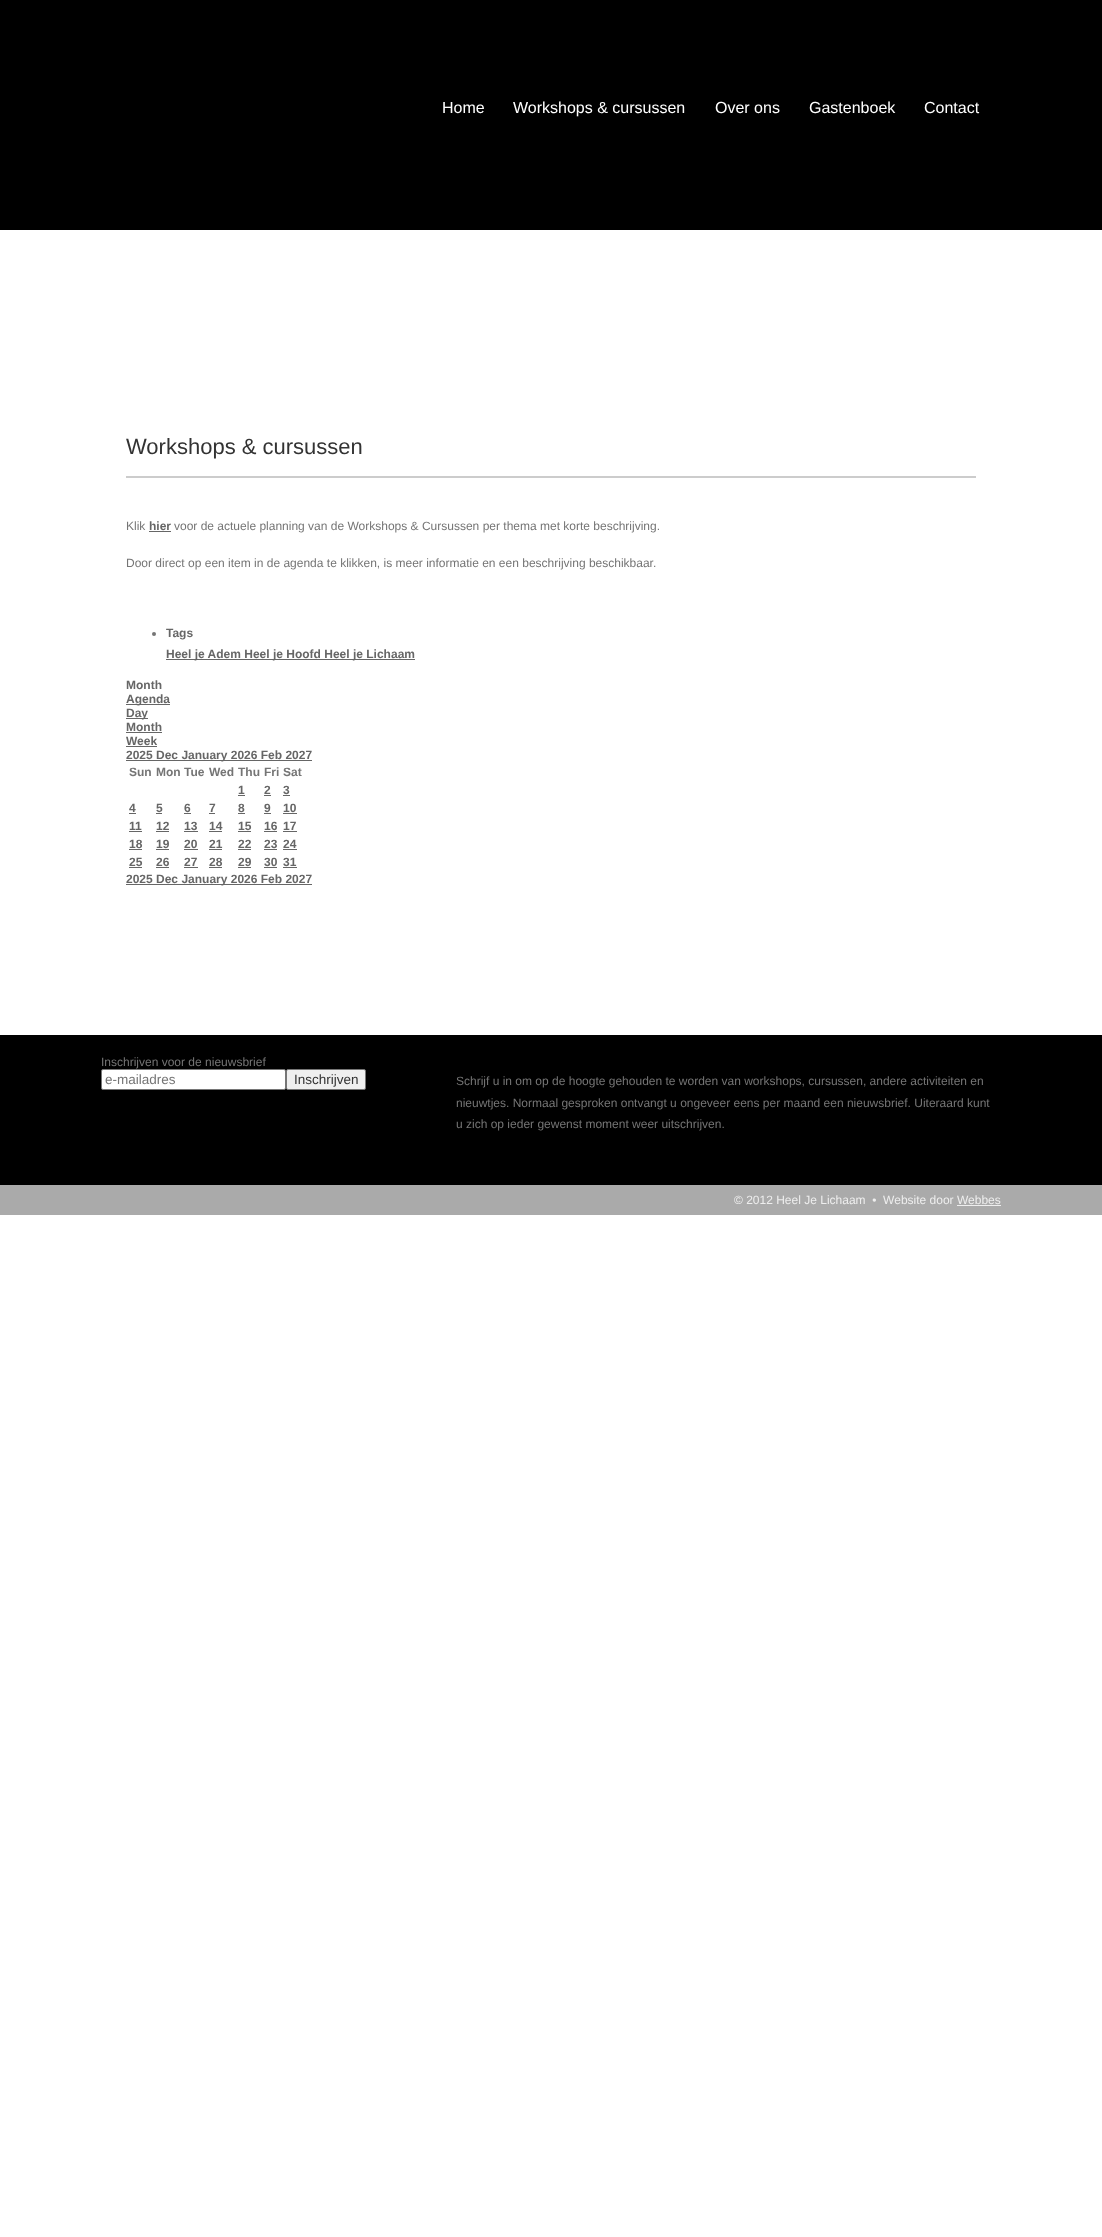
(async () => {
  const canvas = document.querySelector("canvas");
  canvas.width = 1102;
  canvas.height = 2237;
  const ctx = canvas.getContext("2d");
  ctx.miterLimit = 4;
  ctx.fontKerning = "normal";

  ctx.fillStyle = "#ffffff";
  ctx.fillRect(0, 0, 1102, 2237);
  for (const [x, y, w, h, color] of [
    [0, 0, 1102, 1185, "#000000"],
    [0, 230, 1102, 805, "#ffffff"],
    [126, 476, 850, 2, "#cccccc"],
    [149, 531, 22, 1, "#666666"],
  ]) {
    ctx.fillStyle = color;
    ctx.fillRect(x, y, w, h);
  }
  ctx.fillStyle = "#757575";
  ctx.beginPath();
  ctx.arc(154, 634, 2, 0, Math.PI * 2);
  ctx.fill();
  for (const [x, y, w, h, color] of [
    [166, 659, 249, 1, "#666666"],
    [126, 704, 44, 1, "#666666"],
    [126, 718, 22, 1, "#666666"],
    [126, 732, 36, 1, "#666666"],
    [126, 746, 31, 1, "#666666"],
    [126, 760, 186, 1, "#666666"],
    [238, 795, 7, 1, "#666666"],
    [264, 795, 7, 1, "#666666"],
    [283, 795, 7, 1, "#666666"],
    [129, 813, 7, 1, "#666666"],
    [156, 813, 6, 1, "#666666"],
    [184, 813, 7, 1, "#666666"],
    [209, 813, 6, 1, "#666666"],
    [238, 813, 7, 1, "#666666"],
    [264, 813, 7, 1, "#666666"],
    [283, 813, 14, 1, "#666666"],
    [129, 831, 13, 1, "#666666"],
    [156, 831, 13, 1, "#666666"],
    [184, 831, 14, 1, "#666666"],
    [209, 831, 13, 1, "#666666"],
    [238, 831, 13, 1, "#666666"],
    [264, 831, 13, 1, "#666666"],
    [283, 831, 14, 1, "#666666"],
    [129, 849, 13, 1, "#666666"],
    [156, 849, 13, 1, "#666666"],
    [184, 849, 14, 1, "#666666"],
    [209, 849, 13, 1, "#666666"],
    [238, 849, 13, 1, "#666666"],
    [264, 849, 13, 1, "#666666"],
    [283, 849, 14, 1, "#666666"],
    [129, 867, 13, 1, "#666666"],
    [156, 867, 13, 1, "#666666"],
    [184, 867, 14, 1, "#666666"],
    [209, 867, 13, 1, "#666666"],
    [238, 867, 13, 1, "#666666"],
    [264, 867, 13, 1, "#666666"],
    [283, 867, 14, 1, "#666666"],
    [126, 884, 186, 1, "#666666"],
  ]) {
    ctx.fillStyle = color;
    ctx.fillRect(x, y, w, h);
  }
  ctx.fillStyle = "#ffffff";
  ctx.beginPath();
  ctx.roundRect(101.5, 1069.5, 184, 20, 1.5);
  ctx.fill();
  ctx.strokeStyle = "#767676";
  ctx.stroke();
  ctx.fillStyle = "#efefef";
  ctx.beginPath();
  ctx.roundRect(286.5, 1069.5, 79, 20, 1.5);
  ctx.fill();
  ctx.stroke();
  ctx.fillStyle = "#aaaaaa";
  ctx.fillRect(0, 1185, 1102, 30);
  ctx.fillStyle = "#eeeeee";
  ctx.fillRect(957, 1205, 44, 1);
  ctx.font = "16px Liberation Sans";
  ctx.fillStyle = "#ffffff";
  for (const [text, x, y] of [
    ["Home", 442, 113],
    ["Workshops & cursussen", 513, 113],
    ["Over ons", 715, 113],
    ["Gastenboek", 809, 113],
    ["Contact", 924, 113],
  ]) {
    ctx.fillText(text, x, y);
  }
  ctx.font = "22px Liberation Sans";
  ctx.fillStyle = "#333333";
  ctx.fillText("Workshops & cursussen", 126, 454);
  ctx.font = "12px Liberation Sans";
  ctx.fillStyle = "#757575";
  ctx.fillText("Klik", 126, 530);
  ctx.font = "bold 12px Liberation Sans";
  ctx.fillStyle = "#666666";
  ctx.fillText("hier", 149, 530);
  ctx.font = "12px Liberation Sans";
  ctx.fillStyle = "#757575";
  ctx.fillText("voor de actuele planning van de Workshops & Cursussen per thema met korte beschrijving.", 174, 530);
  ctx.fillText("Door direct op een item in de agenda te klikken, is meer informatie en een beschrijving beschikbaar.", 126, 567);
  ctx.font = "bold 12px Liberation Sans";
  ctx.fillStyle = "#666666";
  for (const [text, x, y] of [
    ["Tags", 166, 637],
    ["Heel je Adem Heel je Hoofd Heel je Lichaam", 166, 658],
    ["Month", 126, 689],
    ["Agenda", 126, 703],
    ["Day", 126, 717],
    ["Month", 126, 731],
    ["Week", 126, 745],
    ["2025 Dec January 2026 Feb 2027", 126, 759],
  ]) {
    ctx.fillText(text, x, y);
  }
  ctx.fillStyle = "#757575";
  for (const [text, x, y] of [
    ["Sun", 129, 776],
    ["Mon", 156, 776],
    ["Tue", 184, 776],
    ["Wed", 209, 776],
    ["Thu", 238, 776],
    ["Fri", 264, 776],
    ["Sat", 283, 776],
  ]) {
    ctx.fillText(text, x, y);
  }
  ctx.fillStyle = "#666666";
  for (const [text, x, y] of [
    ["1", 238, 794],
    ["2", 264, 794],
    ["3", 283, 794],
    ["4", 129, 812],
    ["5", 156, 812],
    ["6", 184, 812],
    ["7", 209, 812],
    ["8", 238, 812],
    ["9", 264, 812],
    ["10", 283, 812],
    ["11", 129, 830],
    ["12", 156, 830],
    ["13", 184, 830],
    ["14", 209, 830],
    ["15", 238, 830],
    ["16", 264, 830],
    ["17", 283, 830],
    ["18", 129, 848],
    ["19", 156, 848],
    ["20", 184, 848],
    ["21", 209, 848],
    ["22", 238, 848],
    ["23", 264, 848],
    ["24", 283, 848],
    ["25", 129, 866],
    ["26", 156, 866],
    ["27", 184, 866],
    ["28", 209, 866],
    ["29", 238, 866],
    ["30", 264, 866],
    ["31", 283, 866],
    ["2025 Dec January 2026 Feb 2027", 126, 883],
  ]) {
    ctx.fillText(text, x, y);
  }
  ctx.font = "12px Liberation Sans";
  ctx.fillStyle = "#757575";
  ctx.fillText("Inschrijven voor de nieuwsbrief", 101, 1066);
  ctx.font = "13.5px Liberation Sans";
  ctx.fillText("e-mailadres", 105, 1084);
  ctx.fillStyle = "#333333";
  ctx.fillText("Inschrijven", 294, 1084);
  ctx.font = "12px Liberation Sans";
  ctx.fillStyle = "#757575";
  for (const [text, x, y] of [
    ["Schrijf u in om op de hoogte gehouden te worden van workshops, cursussen, andere activiteiten en", 456, 1085],
    ["nieuwtjes. Normaal gesproken ontvangt u ongeveer eens per maand een nieuwsbrief. Uiteraard kunt", 456, 1107],
    ["u zich op ieder gewenst moment weer uitschrijven.", 456, 1128],
  ]) {
    ctx.fillText(text, x, y);
  }
  ctx.fillStyle = "#eeeeee";
  ctx.fillText("© 2012 Heel Je Lichaam  •  Website door Webbes", 734, 1204);
})();
